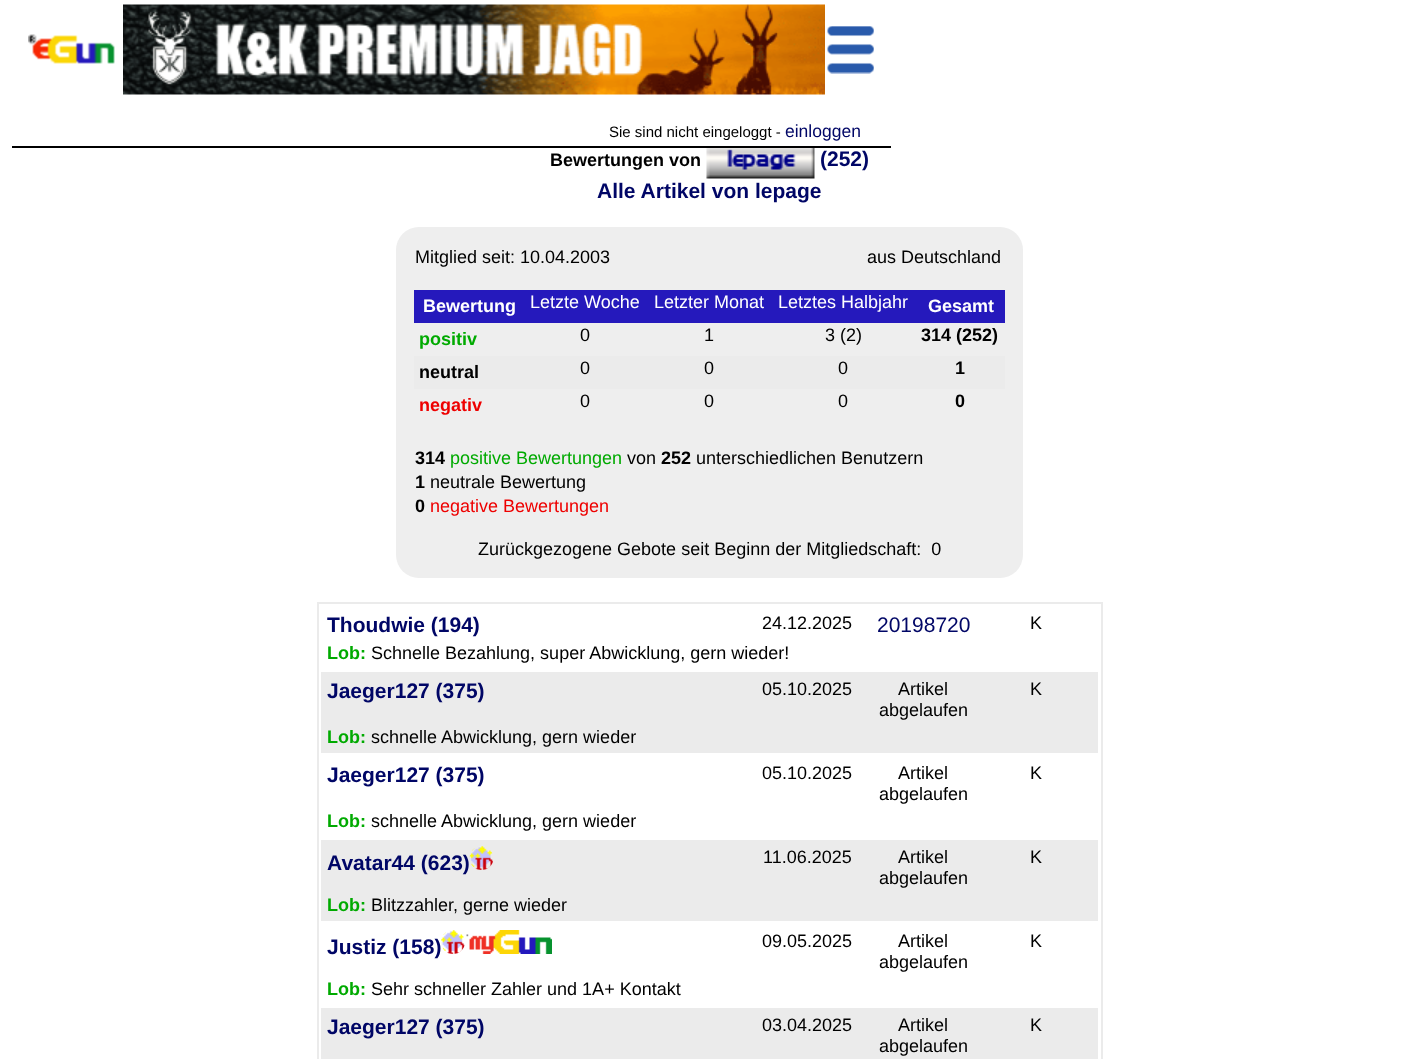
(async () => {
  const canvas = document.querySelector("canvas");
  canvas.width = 1418;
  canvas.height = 1059;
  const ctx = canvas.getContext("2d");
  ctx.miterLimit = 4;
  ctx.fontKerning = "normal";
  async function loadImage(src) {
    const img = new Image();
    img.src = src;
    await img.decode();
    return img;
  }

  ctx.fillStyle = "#ffffff";
  ctx.fillRect(0, 0, 1418, 1059);
  ctx.fillStyle = "#000000";
  ctx.fillRect(12, 146, 879, 2);
  ctx.drawImage(await loadImage("img/1.png"), 28, 34, 87, 30);
  ctx.drawImage(await loadImage("img/2.png"), 123, 4, 702, 91);
  ctx.drawImage(await loadImage("img/3.png"), 827, 26, 47, 48);
  ctx.drawImage(await loadImage("img/4.png"), 706, 148, 109, 31);
  ctx.fillStyle = "#eeeeee";
  ctx.beginPath();
  ctx.roundRect(396, 227, 627, 351, 23);
  ctx.fill();
  ctx.fillStyle = "#2519bc";
  ctx.fillRect(414, 290, 591, 33);
  ctx.fillStyle = "#ebebeb";
  ctx.fillRect(414, 356, 591, 33);
  ctx.strokeStyle = "#ebebeb";
  ctx.lineWidth = 2;
  ctx.strokeRect(318, 603, 784, 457);
  ctx.fillRect(321, 672, 777, 81);
  ctx.fillRect(321, 840, 777, 81);
  ctx.drawImage(await loadImage("img/6.png"), 441, 930, 24, 24);
  ctx.drawImage(await loadImage("img/7.png"), 466, 930, 86, 24);
  ctx.fillRect(321, 1008, 777, 51);
  ctx.font = "15px Liberation Sans";
  ctx.fillStyle = "#000000";
  ctx.fillText("Sie sind nicht eingeloggt -", 609, 137);
  ctx.font = "17.5px Liberation Sans";
  ctx.fillStyle = "#000666";
  ctx.fillText("einloggen", 785, 137);
  ctx.font = "bold 18px Liberation Sans";
  ctx.fillStyle = "#000000";
  ctx.fillText("Bewertungen von", 550, 166);
  ctx.font = "bold 21px Liberation Sans";
  ctx.fillStyle = "#000666";
  ctx.fillText("(252)", 820, 166);
  ctx.fillText("Alle Artikel von lepage", 597, 198);
  ctx.font = "18px Liberation Sans";
  ctx.fillStyle = "#000000";
  ctx.fillText("Mitglied seit: 10.04.2003", 415, 263);
  ctx.fillText("aus Deutschland", 867, 263);
  ctx.font = "bold 18px Liberation Sans";
  ctx.fillStyle = "#ffffff";
  ctx.fillText("Bewertung", 423, 312);
  ctx.font = "18px Liberation Sans";
  for (const [text, x, y] of [
    ["Letzte Woche", 530, 308],
    ["Letzter Monat", 654, 308],
    ["Letztes Halbjahr", 778, 308],
  ]) {
    ctx.fillText(text, x, y);
  }
  ctx.font = "bold 18px Liberation Sans";
  ctx.fillText("Gesamt", 928, 312);
  ctx.fillStyle = "#00aa00";
  ctx.fillText("positiv", 419, 345);
  ctx.font = "18px Liberation Sans";
  ctx.fillStyle = "#000000";
  for (const [text, x, y] of [
    ["0", 580, 341],
    ["1", 704, 341],
    ["3 (2)", 825, 341],
  ]) {
    ctx.fillText(text, x, y);
  }
  ctx.font = "bold 18px Liberation Sans";
  ctx.fillText("314 (252)", 921, 341);
  ctx.fillText("neutral", 419, 378);
  ctx.font = "18px Liberation Sans";
  for (const [text, x, y] of [
    ["0", 580, 374],
    ["0", 704, 374],
    ["0", 838, 374],
  ]) {
    ctx.fillText(text, x, y);
  }
  ctx.font = "bold 18px Liberation Sans";
  ctx.fillText("1", 955, 374);
  ctx.fillStyle = "#ee0000";
  ctx.fillText("negativ", 419, 411);
  ctx.font = "18px Liberation Sans";
  ctx.fillStyle = "#000000";
  for (const [text, x, y] of [
    ["0", 580, 407],
    ["0", 704, 407],
    ["0", 838, 407],
  ]) {
    ctx.fillText(text, x, y);
  }
  ctx.font = "bold 18px Liberation Sans";
  ctx.fillText("0", 955, 407);
  ctx.fillText("314", 415, 464);
  ctx.font = "18px Liberation Sans";
  ctx.fillStyle = "#00aa00";
  ctx.fillText("positive Bewertungen", 450, 464);
  ctx.fillStyle = "#000000";
  ctx.fillText("von", 627, 464);
  ctx.font = "bold 18px Liberation Sans";
  ctx.fillText("252", 661, 464);
  ctx.font = "18px Liberation Sans";
  ctx.fillText("unterschiedlichen Benutzern", 696, 464);
  ctx.font = "bold 18px Liberation Sans";
  ctx.fillText("1", 415, 488);
  ctx.font = "18px Liberation Sans";
  ctx.fillText("neutrale Bewertung", 430, 488);
  ctx.font = "bold 18px Liberation Sans";
  ctx.fillText("0", 415, 512);
  ctx.font = "18px Liberation Sans";
  ctx.fillStyle = "#ee0000";
  ctx.fillText("negative Bewertungen", 430, 512);
  ctx.fillStyle = "#000000";
  ctx.fillText("Zurückgezogene Gebote seit Beginn der Mitgliedschaft:  0", 478, 555);
  ctx.font = "bold 21px Liberation Sans";
  ctx.fillStyle = "#000666";
  ctx.fillText("Thoudwie (194)", 327, 632);
  ctx.font = "18px Liberation Sans";
  ctx.fillStyle = "#000000";
  ctx.fillText("24.12.2025", 762, 629);
  ctx.font = "21px Liberation Sans";
  ctx.fillStyle = "#000666";
  ctx.fillText("20198720", 877, 632);
  ctx.font = "18px Liberation Sans";
  ctx.fillStyle = "#000000";
  ctx.fillText("K", 1030, 629);
  ctx.font = "bold 18px Liberation Sans";
  ctx.fillStyle = "#00aa00";
  ctx.fillText("Lob:", 327, 659);
  ctx.font = "18px Liberation Sans";
  ctx.fillStyle = "#000000";
  ctx.fillText("Schnelle Bezahlung, super Abwicklung, gern wieder!", 371, 659);
  ctx.font = "bold 21px Liberation Sans";
  ctx.fillStyle = "#000666";
  ctx.fillText("Jaeger127 (375)", 327, 698);
  ctx.font = "18px Liberation Sans";
  ctx.fillStyle = "#000000";
  for (const [text, x, y] of [
    ["05.10.2025", 762, 695],
    ["Artikel", 898, 695],
    ["abgelaufen", 879, 716],
    ["K", 1030, 695],
  ]) {
    ctx.fillText(text, x, y);
  }
  ctx.font = "bold 18px Liberation Sans";
  ctx.fillStyle = "#00aa00";
  ctx.fillText("Lob:", 327, 743);
  ctx.font = "18px Liberation Sans";
  ctx.fillStyle = "#000000";
  ctx.fillText("schnelle Abwicklung, gern wieder", 371, 743);
  ctx.font = "bold 21px Liberation Sans";
  ctx.fillStyle = "#000666";
  ctx.fillText("Jaeger127 (375)", 327, 782);
  ctx.font = "18px Liberation Sans";
  ctx.fillStyle = "#000000";
  for (const [text, x, y] of [
    ["05.10.2025", 762, 779],
    ["Artikel", 898, 779],
    ["abgelaufen", 879, 800],
    ["K", 1030, 779],
  ]) {
    ctx.fillText(text, x, y);
  }
  ctx.font = "bold 18px Liberation Sans";
  ctx.fillStyle = "#00aa00";
  ctx.fillText("Lob:", 327, 827);
  ctx.font = "18px Liberation Sans";
  ctx.fillStyle = "#000000";
  ctx.fillText("schnelle Abwicklung, gern wieder", 371, 827);
  ctx.font = "bold 21px Liberation Sans";
  ctx.fillStyle = "#000666";
  ctx.fillText("Avatar44 (623)", 327, 870);
  ctx.drawImage(await loadImage("img/5.png"), 469, 846, 24, 24);
  ctx.font = "18px Liberation Sans";
  ctx.fillStyle = "#000000";
  for (const [text, x, y] of [
    ["11.06.2025", 763, 863],
    ["Artikel", 898, 863],
    ["abgelaufen", 879, 884],
    ["K", 1030, 863],
  ]) {
    ctx.fillText(text, x, y);
  }
  ctx.font = "bold 18px Liberation Sans";
  ctx.fillStyle = "#00aa00";
  ctx.fillText("Lob:", 327, 911);
  ctx.font = "18px Liberation Sans";
  ctx.fillStyle = "#000000";
  ctx.fillText("Blitzzahler, gerne wieder", 371, 911);
  ctx.font = "bold 21px Liberation Sans";
  ctx.fillStyle = "#000666";
  ctx.fillText("Justiz (158)", 327, 954);
  ctx.font = "18px Liberation Sans";
  ctx.fillStyle = "#000000";
  for (const [text, x, y] of [
    ["09.05.2025", 762, 947],
    ["Artikel", 898, 947],
    ["abgelaufen", 879, 968],
    ["K", 1030, 947],
  ]) {
    ctx.fillText(text, x, y);
  }
  ctx.font = "bold 18px Liberation Sans";
  ctx.fillStyle = "#00aa00";
  ctx.fillText("Lob:", 327, 995);
  ctx.font = "18px Liberation Sans";
  ctx.fillStyle = "#000000";
  ctx.fillText("Sehr schneller Zahler und 1A+ Kontakt", 371, 995);
  ctx.font = "bold 21px Liberation Sans";
  ctx.fillStyle = "#000666";
  ctx.fillText("Jaeger127 (375)", 327, 1034);
  ctx.font = "18px Liberation Sans";
  ctx.fillStyle = "#000000";
  for (const [text, x, y] of [
    ["03.04.2025", 762, 1031],
    ["Artikel", 898, 1031],
    ["abgelaufen", 879, 1052],
    ["K", 1030, 1031],
  ]) {
    ctx.fillText(text, x, y);
  }
})();
